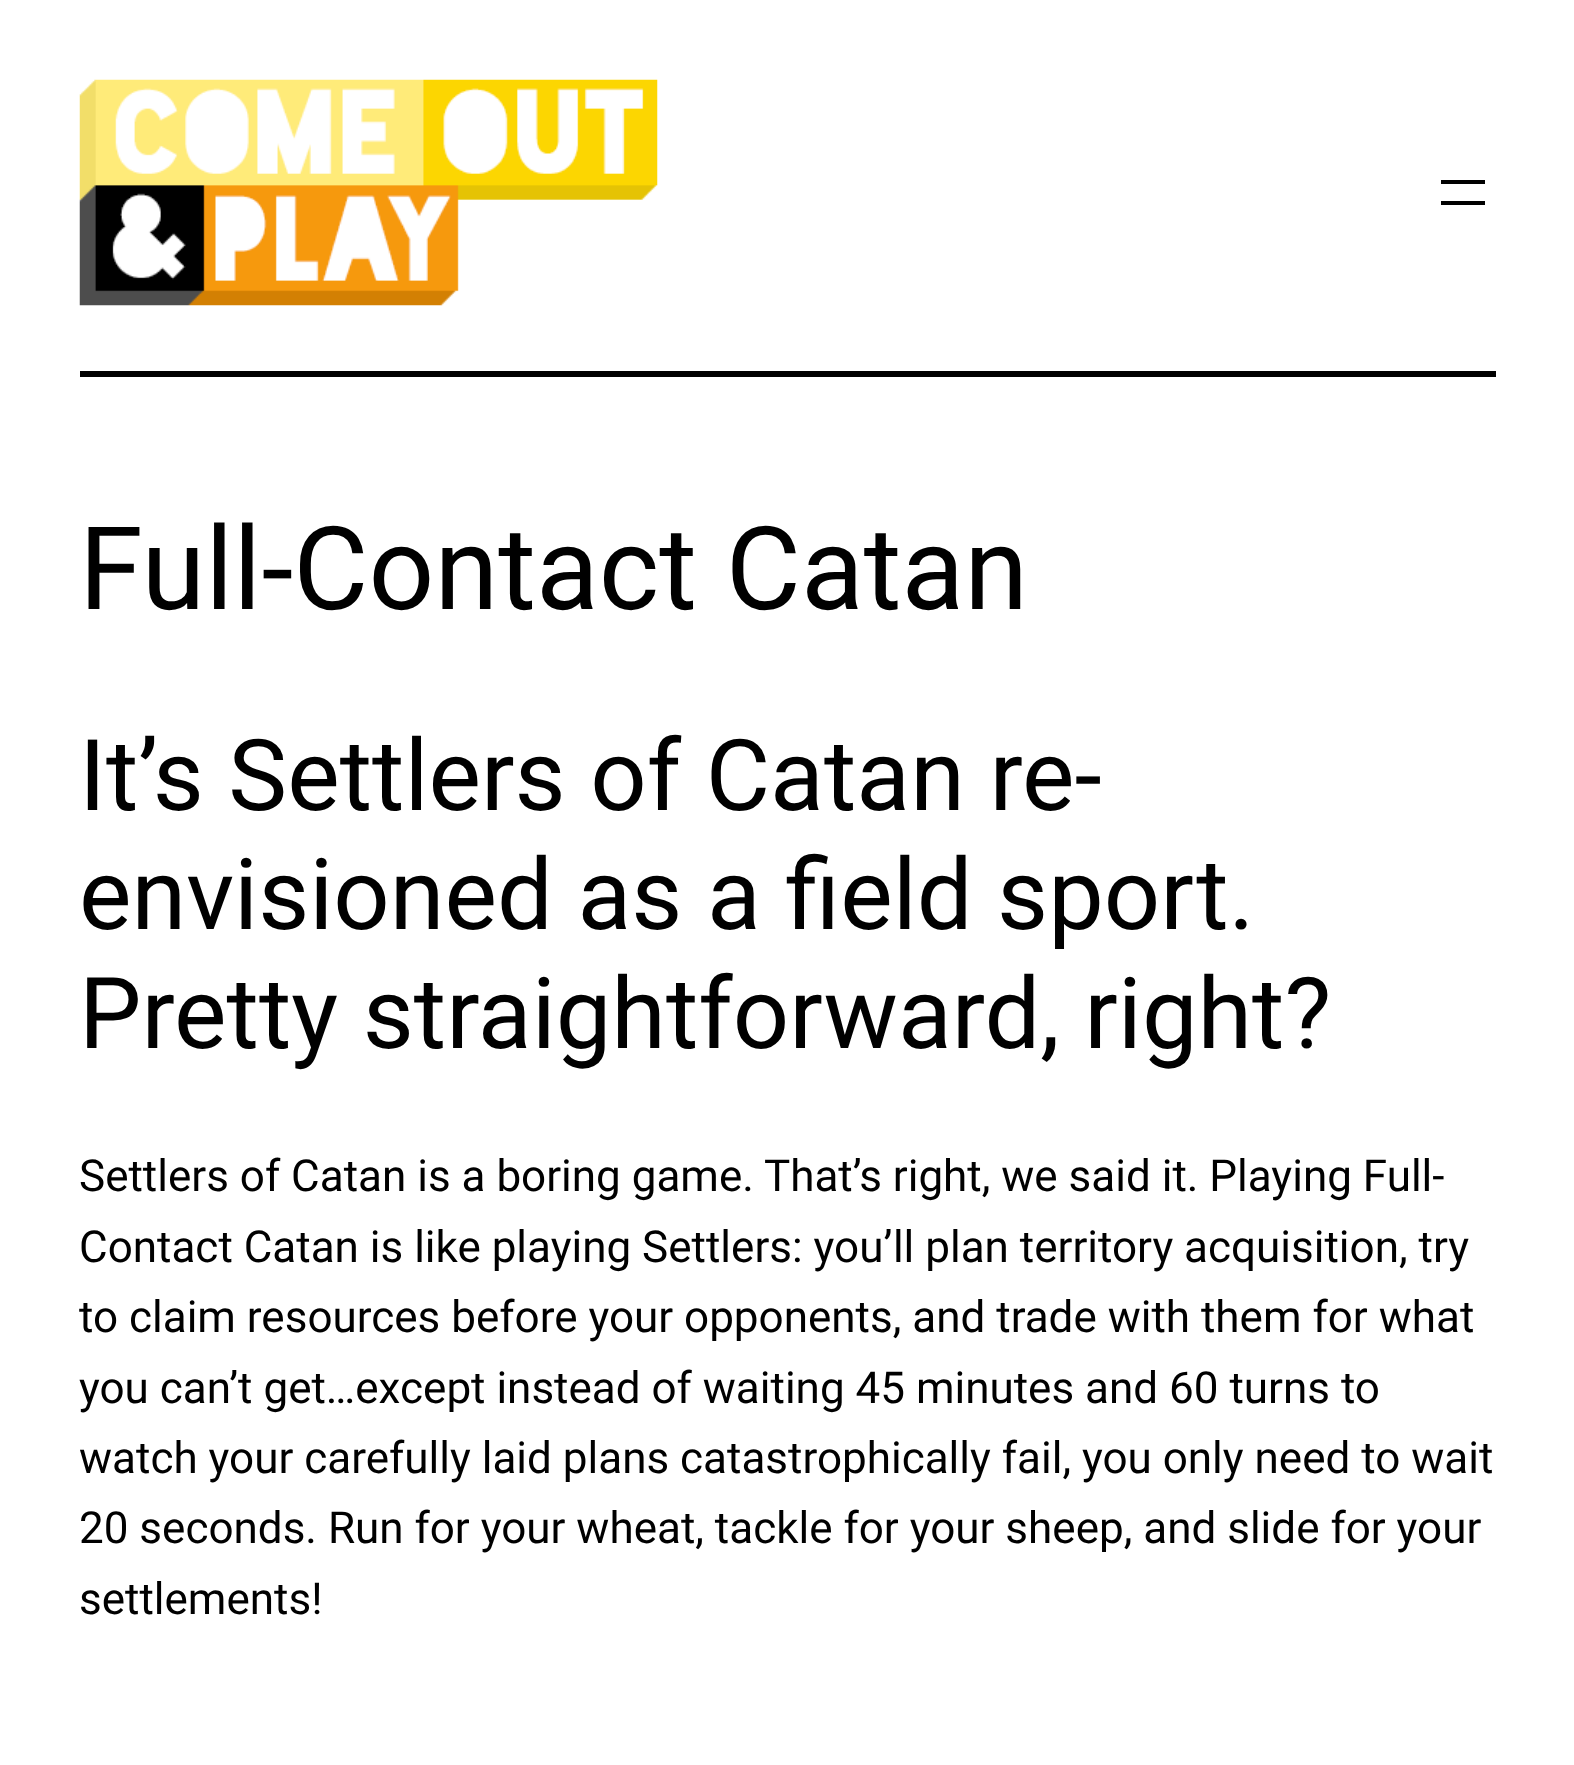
<svg xmlns="http://www.w3.org/2000/svg" xmlns:xlink="http://www.w3.org/1999/xlink" width="1574" height="1765" viewBox="0 0 1574 1765">
<style>
.cls-1{font:115.5px Roboto;fill:#000000}
.cls-2{font:99px Roboto;fill:#000000}
.cls-3{font:44px Roboto;fill:#000000}
</style>
<rect width="100%" height="100%" fill="#ffffff"/>
<image xlink:href="image0.png" x="79" y="79" width="579" height="227"/>
<rect fill="#000000" x="1441" y="180" width="44" height="4"/>
<rect fill="#000000" x="1441" y="201" width="44" height="4"/>
<rect fill="#000000" x="80" y="371" width="1416" height="6"/>
<text class="cls-1" x="79" y="609">Full-Contact Catan</text>
<text class="cls-2"><tspan x="79" y="810">It’s Settlers of Catan re-</tspan><tspan x="79" y="929">envisioned as a field sport.</tspan><tspan x="79" y="1048">Pretty straightforward, right?</tspan></text>
<text class="cls-3"><tspan x="79" y="1191">Settlers of Catan is a boring game. That’s right, we said it. Playing Full-</tspan><tspan x="79" y="1262">Contact Catan is like playing Settlers: you’ll plan territory acquisition, try</tspan><tspan x="79" y="1332">to claim resources before your opponents, and trade with them for what</tspan><tspan x="79" y="1403">you can’t get…except instead of waiting 45 minutes and 60 turns to</tspan><tspan x="79" y="1473">watch your carefully laid plans catastrophically fail, you only need to wait</tspan><tspan x="79" y="1543">20 seconds. Run for your wheat, tackle for your sheep, and slide for your</tspan><tspan x="79" y="1614">settlements!</tspan></text>
</svg>
